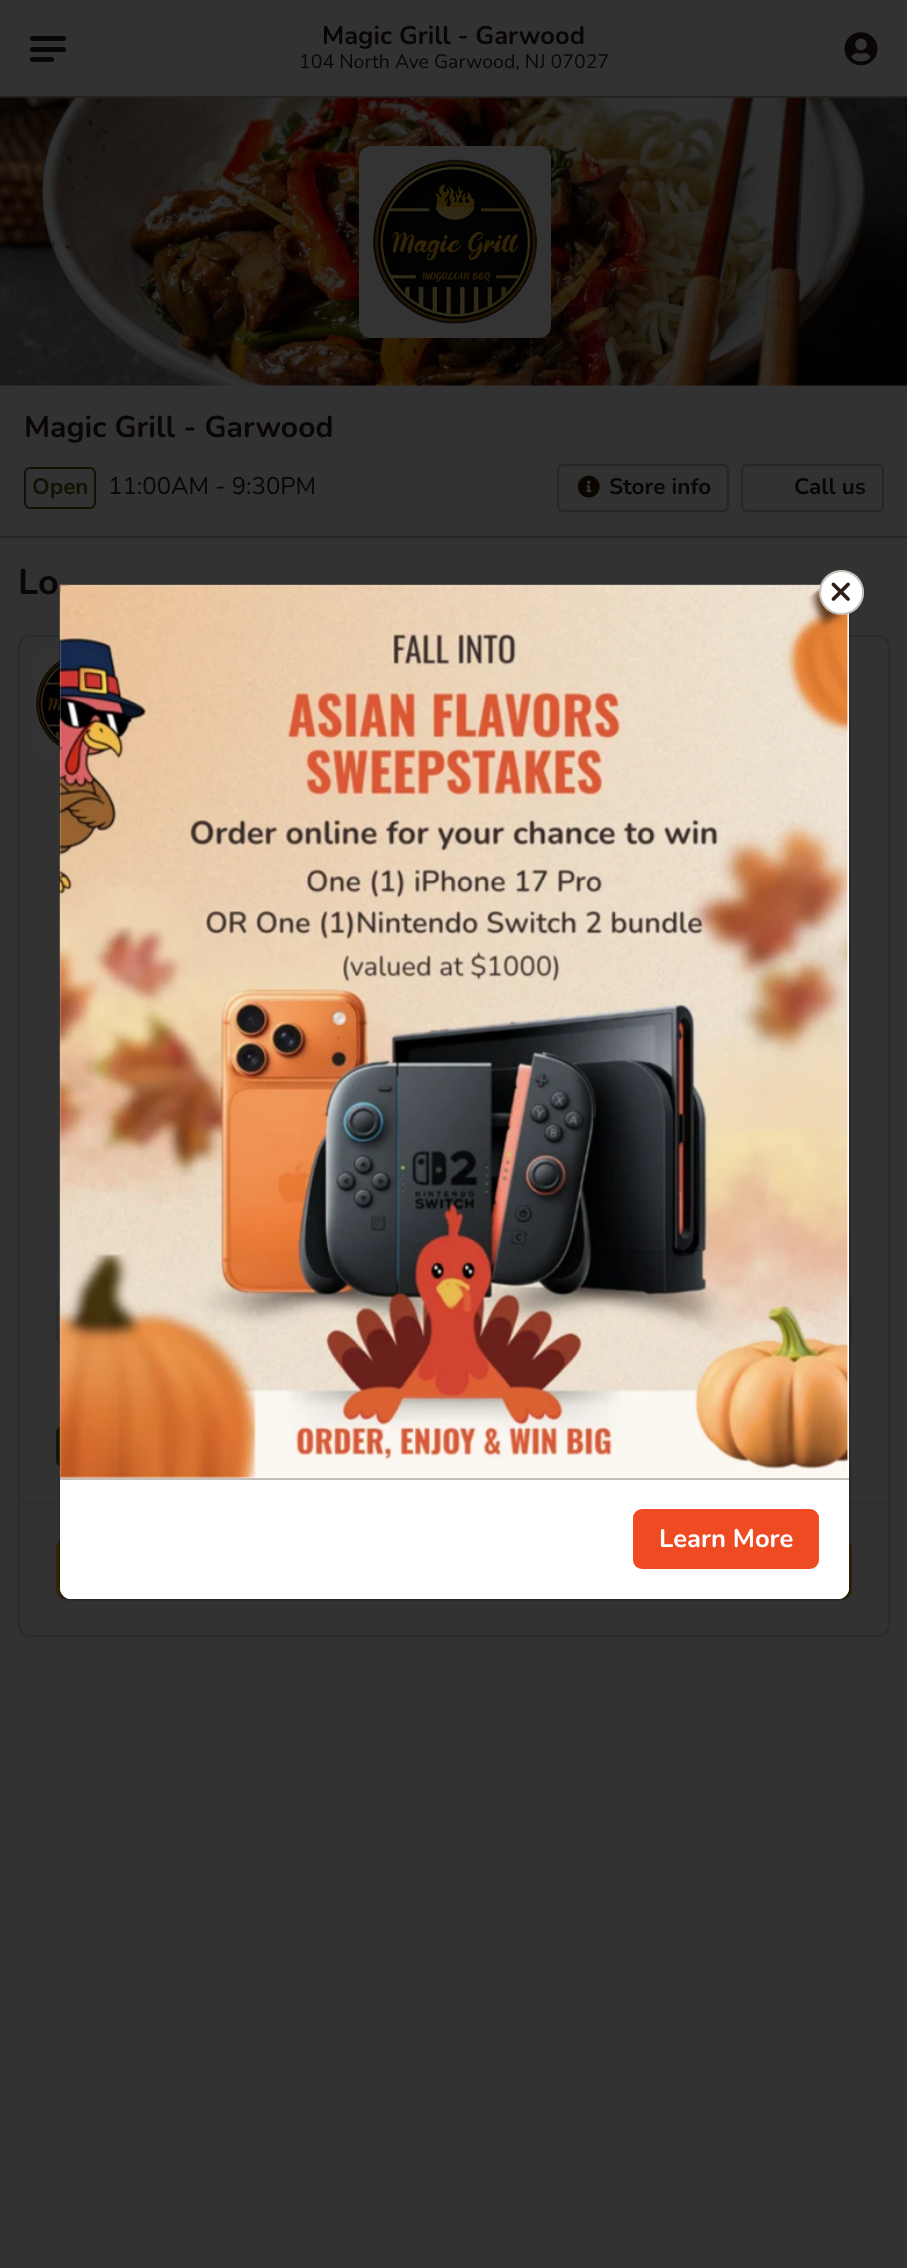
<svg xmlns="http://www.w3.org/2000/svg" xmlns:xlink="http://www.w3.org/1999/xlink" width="907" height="2268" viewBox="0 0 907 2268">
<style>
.cls-1{font:bold 25.5px Nunito;fill:#0a0605}
.cls-2{font:19.5px Nunito;fill:#0a0605}
.cls-3{font:bold 30px Nunito;fill:#0a0605}
.cls-4{font:bold 22.5px Nunito;fill:#0f1301}
.cls-5{font:24px Nunito;fill:#0a0605}
.cls-6{font:bold 22.5px Nunito;fill:#0a0605}
.cls-7{font:bold 36px Nunito;fill:#0a0605}
.cls-8{font:bold 25.5px Nunito;fill:#ffffff}
</style>
<rect width="100%" height="100%" fill="#323232"/>
<rect fill="#272624" x="0" y="537" width="907" height="1"/>
<rect fill="#272625" x="0" y="96" width="907" height="2"/>
<image xlink:href="image1.png" x="0" y="97" width="907" height="289"/>
<path fill="#1e1c19" fill-opacity="0.35" d="M0 96V98H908V2V96Z"/>
<rect fill="#070708" x="30" y="36" width="36" height="5" rx="2.5"/>
<rect fill="#070708" x="30" y="47" width="36" height="5" rx="2.5"/>
<rect fill="#070708" x="30" y="57" width="24" height="5" rx="2.5"/>
<image xlink:href="image0.png" x="844" y="32" width="34" height="34"/>
<rect fill="#272625" x="0" y="536" width="907" height="1"/>
<rect fill="#333333" x="359" y="146" width="192" height="192" rx="12"/>
<image xlink:href="image2.png" x="372" y="159" width="166" height="165"/>
<rect fill="none" stroke="#0f1301" stroke-width="2" x="25" y="468" width="70" height="40" rx="5"/>
<rect fill="none" stroke="#272625" stroke-width="2" x="558" y="465" width="170" height="46" rx="5"/>
<image xlink:href="image3.png" x="577" y="475" width="23" height="23"/>
<rect fill="none" stroke="#272625" stroke-width="2" x="742" y="465" width="141" height="46" rx="5"/>
<rect fill="none" stroke="#2b2b2b" stroke-width="2" x="19" y="636" width="870" height="1000" rx="11"/>
<image xlink:href="image4.png" x="35" y="652" width="25" height="104"/>
<rect fill="none" stroke="#2c2b2a" stroke-width="2" x="57" y="1297" width="794" height="46" rx="5"/>
<image xlink:href="image5.png" x="56" y="1427" width="4" height="39"/>
<rect fill="#2e2e2e" x="20" y="1502" width="868" height="2"/>
<rect fill="#312509" stroke="#312509" stroke-width="2" x="57" y="1540" width="794" height="58" rx="8"/>
<rect fill="#ffffff" x="60" y="585" width="789" height="1014" rx="11"/>
<rect fill="none" stroke="#000000" stroke-opacity="0.18" stroke-width="2" x="60" y="585" width="790" height="1015" rx="11"/>
<image xlink:href="image7.png" x="59" y="584" width="790" height="894"/>
<circle fill="#ffffff" cx="841.5" cy="592.5" r="22.5"/>
<image xlink:href="image6.png" x="831" y="582" width="19" height="19"/>
<circle fill="none" stroke="#948d7c" stroke-opacity="0.55" stroke-width="2" cx="841.5" cy="592.5" r="21.5"/>
<path fill="#ffffff" d="M60 1478H849V1588C849 1594 844 1599 838 1599H71C65 1599 60 1594 60 1588Z"/>
<rect fill="#c4c0b7" x="60" y="1478" width="789" height="2"/>
<rect fill="#ef4b23" x="633" y="1509" width="186" height="60" rx="9"/>
<text class="cls-1" x="322" y="44">Magic Grill - Garwood</text>
<text class="cls-2" x="299" y="68">104 North Ave Garwood, NJ 07027</text>
<text class="cls-3" x="24" y="437">Magic Grill - Garwood</text>
<text class="cls-4" x="32" y="494">Open</text>
<text class="cls-5" x="108" y="494">11:00AM - 9:30PM</text>
<text class="cls-6" x="609" y="494">Store info</text>
<text class="cls-6" x="794" y="494">Call us</text>
<text class="cls-7" x="18" y="594">Lo</text>
<text class="cls-8" x="659" y="1547">Learn More</text>
</svg>
